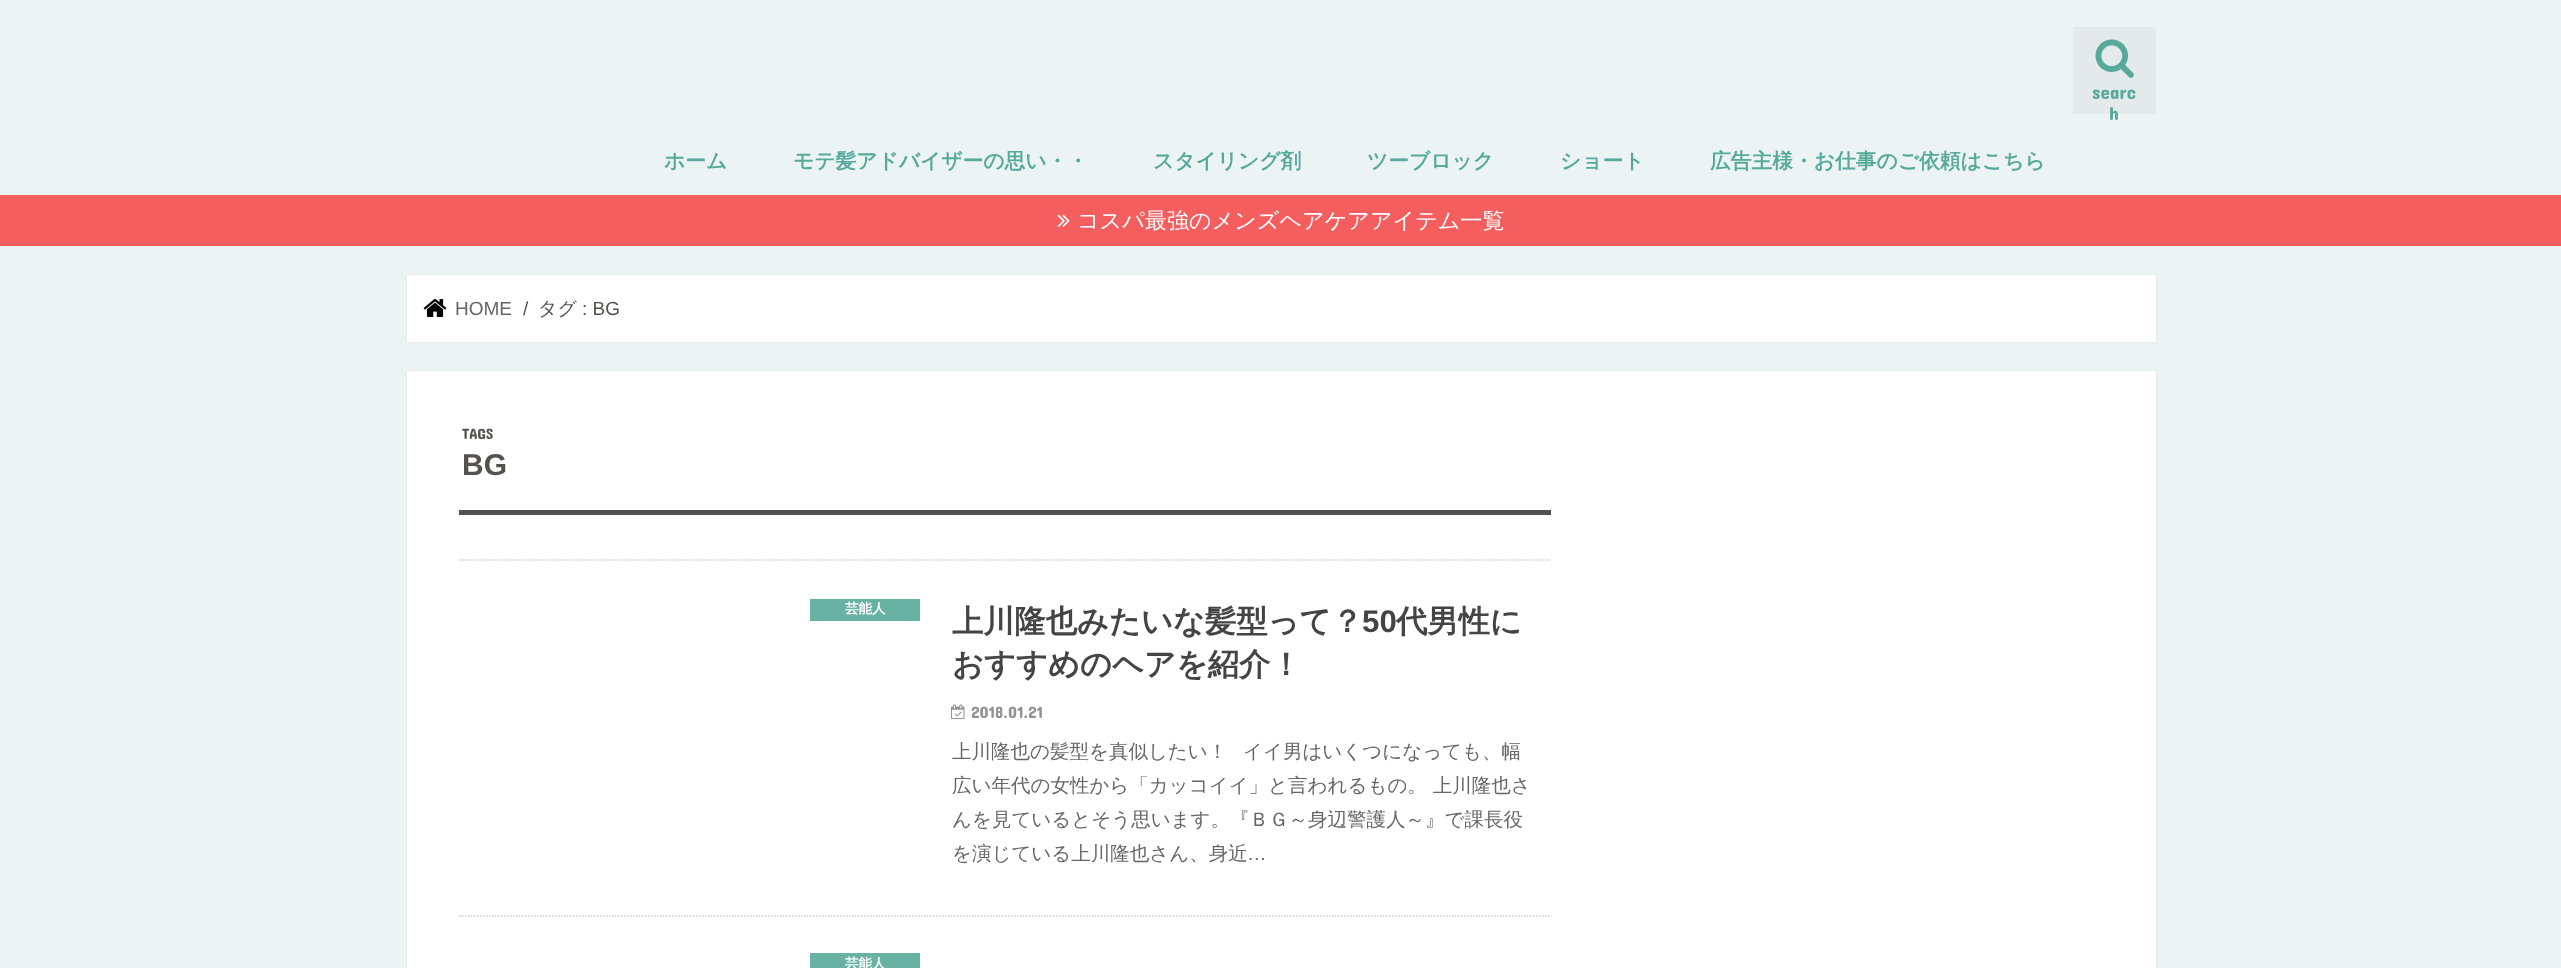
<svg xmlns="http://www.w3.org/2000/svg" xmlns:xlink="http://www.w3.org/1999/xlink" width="2561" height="968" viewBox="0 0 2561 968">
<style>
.cls-1{font:19px Concert One;fill:#57a99a}
.cls-2{font:bold 20.75px WenQuanYi Zen Hei;fill:#57a99a}
.cls-3{font:500 22.1px WenQuanYi Zen Hei;fill:#ffffff}
.cls-4{font:19px Liberation Sans;fill:#666666}
.cls-5{font:19px Liberation Sans;fill:#555151}
.cls-6{font:500 19px WenQuanYi Zen Hei;fill:#555151}
.cls-7{font:15px Concert One;fill:#555151}
.cls-8{font:bold 30px Liberation Sans;fill:#555151}
.cls-9{font:bold 13.5px WenQuanYi Zen Hei;fill:#ffffff}
.cls-10{font:bold 31.25px WenQuanYi Zen Hei;fill:#444444}
.cls-11{font:bold 31.25px Liberation Sans;fill:#444444}
.cls-12{font:16.5px Concert One;fill:#949494}
.cls-13{font:500 19.5px WenQuanYi Zen Hei;fill:#666666}
.cls-14{font:19.5px Liberation Sans;fill:#666666}
</style>
<rect width="100%" height="100%" fill="#ecf4f3"/>
<rect fill="#e3eae9" x="2073" y="27" width="83" height="87"/>
<image xlink:href="image0.png" x="2095" y="39" width="39" height="39"/>
<rect fill="#f55e5e" x="0" y="195" width="2561" height="51"/>
<image xlink:href="image1.png" x="1057" y="214" width="13" height="13"/>
<rect fill="#dddddd" filter="blur(1px)" x="407" y="275" width="1749" height="67"/>
<rect fill="#ffffff" x="407" y="275" width="1749" height="67"/>
<image xlink:href="image2.png" x="423" y="299" width="24" height="18"/>
<rect fill="#dddddd" filter="blur(1px)" x="407" y="371" width="1749" height="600"/>
<rect fill="#ffffff" x="407" y="371" width="1749" height="597"/>
<rect fill="#555151" x="459" y="510" width="1092" height="5"/>
<path fill="none" stroke="#cccccc" stroke-width="1.5" stroke-dasharray="1.5 1.5" d="M459 560H1551"/>
<path fill="none" stroke="#cccccc" stroke-width="1.5" stroke-dasharray="1.5 1.5" d="M459 916H1551"/>
<rect fill="#68b2a4" x="810" y="599" width="110" height="22"/>
<image xlink:href="image3.png" x="951" y="704" width="14" height="16"/>
<rect fill="#68b2a4" x="810" y="953" width="110" height="15"/>
<text class="cls-1" x="2092" y="99">searc</text>
<text class="cls-1" x="2109" y="120">h</text>
<text class="cls-2" x="664" y="168">ホーム</text>
<text class="cls-2" x="793" y="168">モテ髪アドバイザーの思い・・</text>
<text class="cls-2" x="1153" y="168">スタイリング剤</text>
<text class="cls-2" x="1367" y="168">ツーブロック</text>
<text class="cls-2" x="1560" y="168">ショート</text>
<text class="cls-2" x="1710" y="168">広告主様・お仕事のご依頼はこちら</text>
<text class="cls-3" x="1077" y="228">コスパ最強のメンズヘアケアアイテム一覧</text>
<text class="cls-4" x="455" y="315">HOME</text>
<text class="cls-5" x="523" y="315">/</text>
<text class="cls-6" x="538" y="315">タグ</text>
<text class="cls-5" x="582" y="315">: BG</text>
<text class="cls-7" x="462" y="439">TAGS</text>
<text class="cls-8" x="462" y="475">BG</text>
<text class="cls-9" x="845" y="613">芸能人</text>
<text class="cls-10" x="952" y="632">上川隆也みたいな髪型って？</text>
<text class="cls-11" x="1362" y="632">50</text>
<text class="cls-10" x="1396" y="632">代男性に</text>
<text class="cls-10" x="952" y="675">おすすめのヘアを紹介！</text>
<text class="cls-12" x="971" y="718">2018.01.21</text>
<text class="cls-13" x="952" y="758">上川隆也の髪型を真似したい！</text>
<text class="cls-13" x="1243" y="758">イイ男はいくつになっても、幅</text>
<text class="cls-13"><tspan x="952" y="792">広い年代の女性から「カッコイイ」と言われるもの。 上川隆也さ</tspan><tspan x="952" y="826">んを見ているとそう思います。『ＢＧ～身辺警護人～』で課長役</tspan><tspan x="952" y="860">を演じている上川隆也さん、身近</tspan></text>
<text class="cls-14" x="1247" y="860">…</text>
<text class="cls-9" x="845" y="968">芸能人</text>
</svg>
